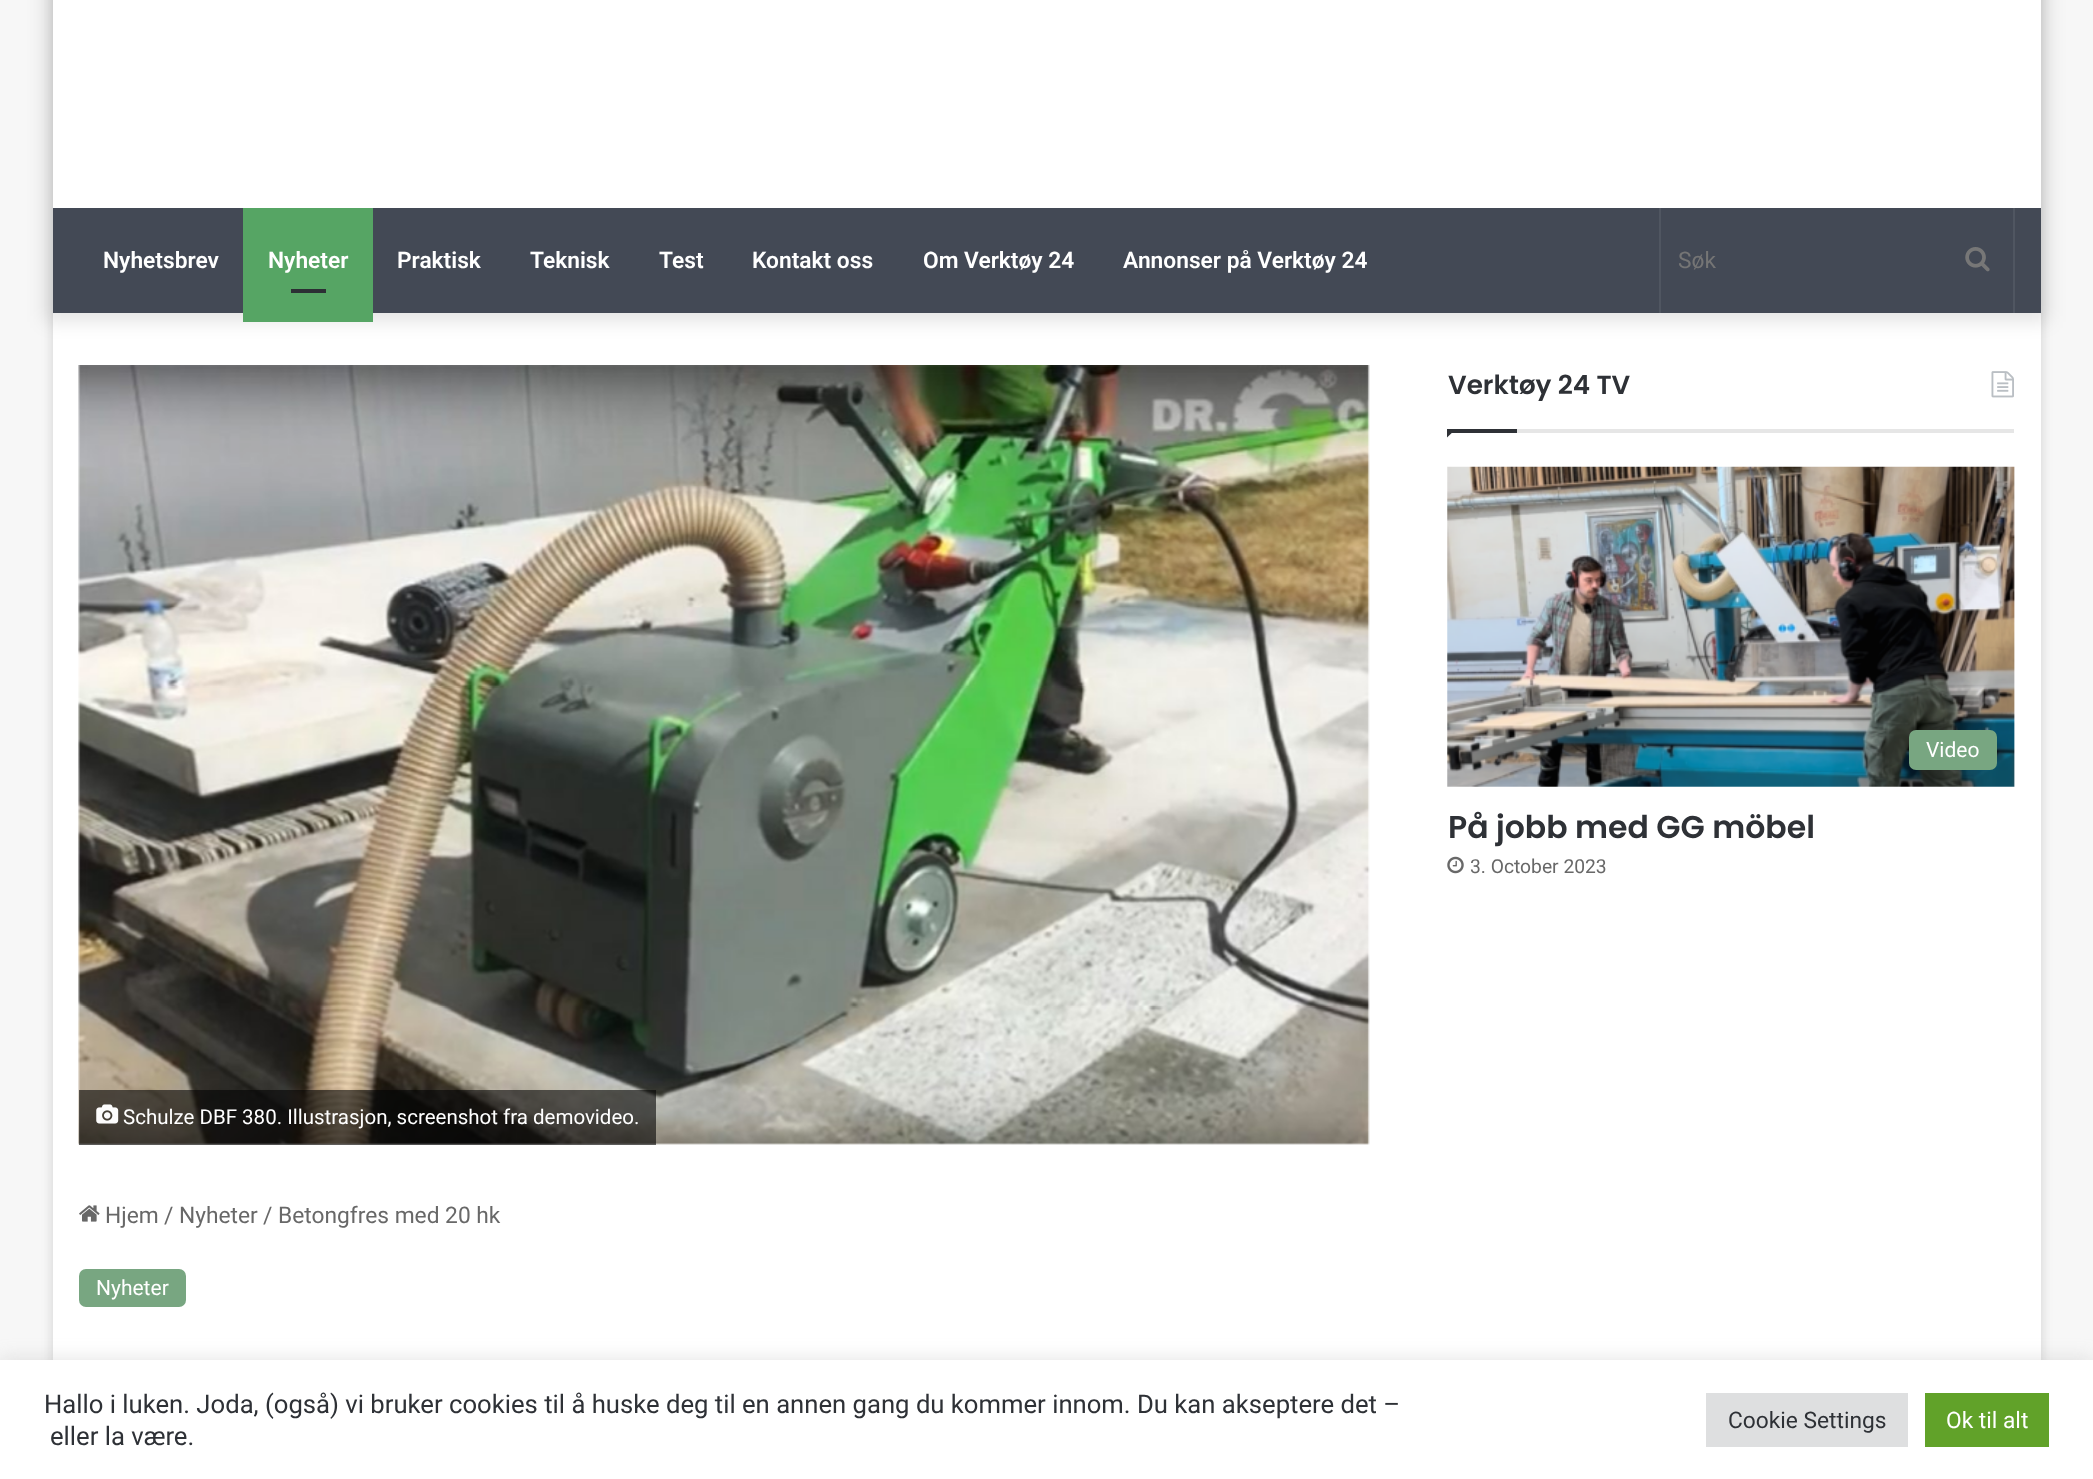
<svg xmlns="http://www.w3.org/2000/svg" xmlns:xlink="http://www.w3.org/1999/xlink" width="2093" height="1479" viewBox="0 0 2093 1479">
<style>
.cls-1{font:600 22.75px Roboto;fill:#ffffff}
.cls-2{font:22.75px Roboto;fill:#757575}
.cls-3{font:600 26.25px Poppins;fill:#2e3136}
.cls-4{font:21px Roboto;fill:#ffffff}
.cls-5{font:600 31.5px Poppins;fill:#2e3136}
.cls-6{font:19.25px Roboto;fill:#686868}
.cls-7{font:20.5px Roboto;fill:#ffffff}
.cls-8{font:22.75px Roboto;fill:#686868}
.cls-9{font:25.67px Roboto;fill:#2e3136}
.cls-10{font:22.75px Roboto;fill:#2e3136}
.cls-11{font:22.75px Roboto;fill:#ffffff}
</style>
<rect width="100%" height="100%" fill="#f7f7f7"/>
<rect fill="#ababab" fill-opacity="0.5" filter="blur(6px)" x="53" y="-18" width="1988" height="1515"/>
<rect fill="#ffffff" x="53" y="313" width="1988" height="1047"/>
<rect fill="#000000" fill-opacity="0.1" filter="blur(9px)" x="44" y="-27" width="2005" height="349"/>
<rect fill="#ffffff" x="53" y="0" width="1988" height="208"/>
<rect fill="#434955" x="53" y="208" width="1988" height="105"/>
<rect fill="#56a564" x="243" y="208" width="130" height="114"/>
<rect fill="#2c2f34" x="291" y="289" width="35" height="4"/>
<rect fill="#505661" x="2013" y="208" width="2" height="105"/>
<rect fill="#505661" x="1659" y="208" width="2" height="105"/>
<image xlink:href="image0.png" x="1965" y="247" width="25" height="25"/>
<rect fill="#e6e6e6" x="1517" y="429" width="497" height="4"/>
<image xlink:href="image1.png" x="1991" y="371" width="23" height="27"/>
<path fill="#2e3136" d="M1447 429H1456L1447 437.5Z"/>
<rect fill="#2e3136" x="1447" y="429" width="70" height="4"/>
<image xlink:href="image2.png" x="1447" y="466" width="568" height="321"/>
<rect fill="#78a681" x="1909" y="730" width="88" height="40" rx="7"/>
<image xlink:href="image3.png" x="1447" y="856" width="17" height="18"/>
<image xlink:href="image4.png" x="78" y="365" width="1292" height="780"/>
<rect fill="#030303" fill-opacity="0.6" x="79" y="1090" width="577" height="55"/>
<image xlink:href="image5.png" x="96" y="1104" width="23" height="20"/>
<image xlink:href="image6.png" x="79" y="1205" width="21" height="17"/>
<rect fill="#78a681" x="79" y="1269" width="107" height="38" rx="7"/>
<rect fill="#acabab" fill-opacity="0.3" filter="blur(9px)" x="0" y="1358" width="2093" height="121"/>
<rect fill="#ffffff" x="0" y="1360" width="2093" height="119"/>
<rect fill="#dedfe0" x="1706" y="1393" width="202" height="54"/>
<rect fill="#61a229" x="1925" y="1393" width="124" height="54"/>
<text class="cls-1" x="103" y="268">Nyhetsbrev</text>
<text class="cls-1" x="268" y="268">Nyheter</text>
<text class="cls-1" x="397" y="268">Praktisk</text>
<text class="cls-1" x="530" y="268">Teknisk</text>
<text class="cls-1" x="659" y="268">Test</text>
<text class="cls-1" x="752" y="268">Kontakt oss</text>
<text class="cls-1" x="923" y="268">Om Verktøy 24</text>
<text class="cls-1" x="1123" y="268">Annonser på Verktøy 24</text>
<text class="cls-2" x="1678" y="268">Søk</text>
<text class="cls-3" x="1448" y="394">Verktøy 24 TV</text>
<text class="cls-4" x="1926" y="757">Video</text>
<text class="cls-5" x="1448" y="838">På jobb med GG möbel</text>
<text class="cls-6" x="1470" y="873">3. October 2023</text>
<text class="cls-7" x="123" y="1124">Schulze DBF 380. Illustrasjon, screenshot fra demovideo.</text>
<text class="cls-8" x="105" y="1223">Hjem</text>
<text class="cls-8" x="164" y="1223">/</text>
<text class="cls-8" x="179" y="1223">Nyheter</text>
<text class="cls-8" x="263" y="1223">/</text>
<text class="cls-8" x="278" y="1223">Betongfres med 20 hk</text>
<text class="cls-4" x="96" y="1295">Nyheter</text>
<text class="cls-9" x="44" y="1413">Hallo i luken. Joda, (også) vi bruker cookies til å huske deg til en annen gang du kommer innom. Du kan akseptere det –</text>
<text class="cls-9" x="50" y="1445">eller la være.</text>
<text class="cls-10" x="1728" y="1428">Cookie Settings</text>
<text class="cls-11" x="1946" y="1428">Ok til alt</text>
</svg>
